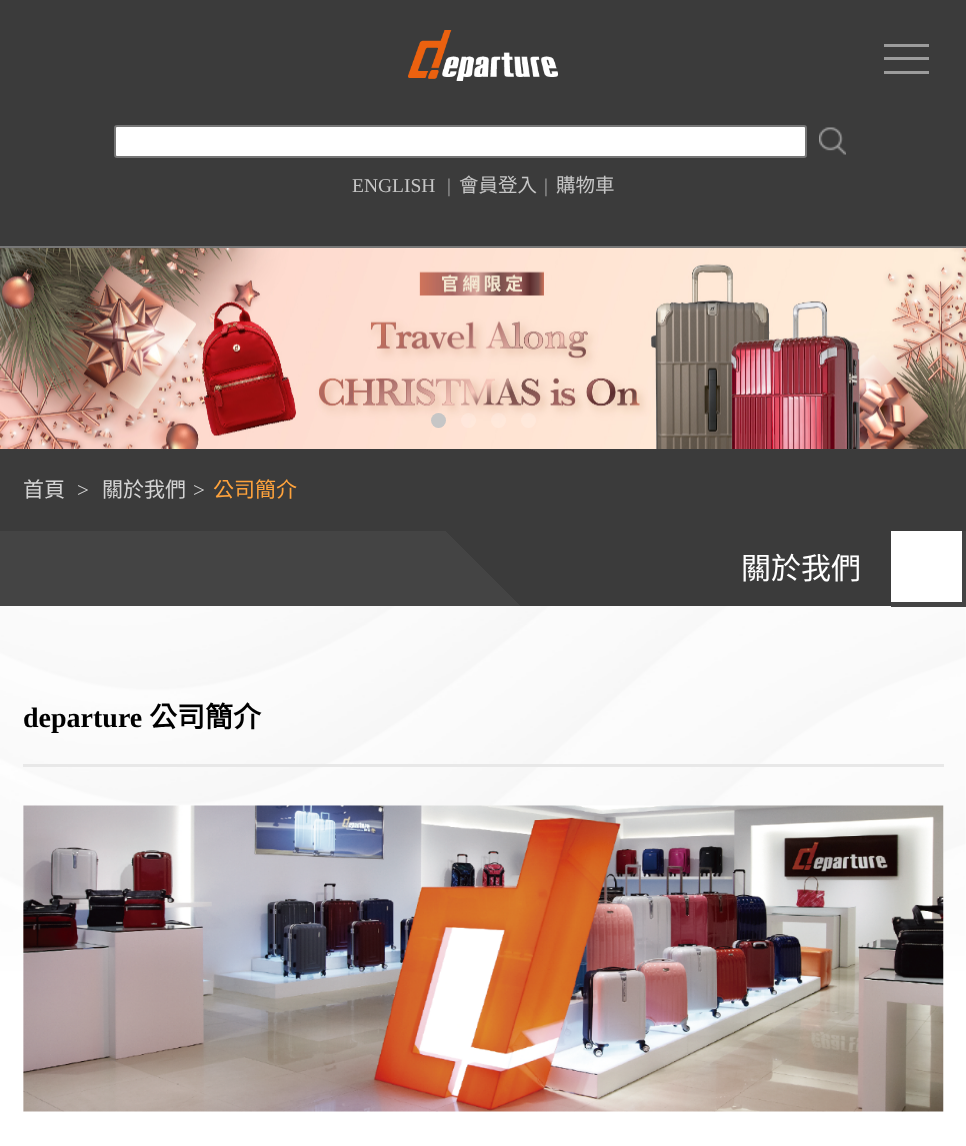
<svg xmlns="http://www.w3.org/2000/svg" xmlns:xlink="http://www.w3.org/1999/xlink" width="966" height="1146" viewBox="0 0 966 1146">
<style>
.cls-1{font:19.5px Liberation Serif;fill:#c6c6c6}
.cls-2{font:19.5px Liberation Serif;fill:#ababab}
.cls-3{font:19.5px Noto Sans CJK TC;fill:#c6c6c6}
.cls-4{font:21px Noto Sans CJK TC;fill:#d4d4d4}
.cls-5{font:21px Liberation Serif;fill:#d4d4d4}
.cls-6{font:21px Noto Sans CJK TC;fill:#ffa33c}
.cls-7{font:30px Noto Sans CJK TC;fill:#ffffff}
.cls-8{font:bold 28px Liberation Serif;fill:#000000}
.cls-9{font:bold 28px Noto Sans CJK TC;fill:#000000}
</style>
<defs>
<linearGradient id="g1" gradientUnits="userSpaceOnUse" x1="223" y1="829" x2="743" y2="308"><stop offset="0" stop-color="#444444"/><stop offset="0.5" stop-color="#444444"/><stop offset="0.5" stop-color="#3b3b3b"/><stop offset="1" stop-color="#3b3b3b"/></linearGradient>
</defs>
<rect width="100%" height="100%" fill="#ffffff"/>
<rect fill="#3b3b3b" x="0" y="0" width="966" height="246"/>
<rect fill="#9c9c9c" x="884" y="44" width="45" height="3"/>
<rect fill="#9c9c9c" x="884" y="57" width="45" height="3"/>
<rect fill="#9c9c9c" x="884" y="71" width="45" height="3"/>
<image xlink:href="image0.png" x="0" y="606" width="966" height="365"/>
<rect fill="#777777" x="0" y="246" width="966" height="2"/>
<image xlink:href="image1.png" x="408" y="30" width="150" height="51"/>
<rect fill="#ffffff" stroke="#767676" stroke-width="2" x="115" y="126" width="691" height="31" rx="2"/>
<image xlink:href="image2.png" x="819" y="127" width="27" height="28"/>
<image xlink:href="image3.png" x="0" y="248" width="966" height="201"/>
<circle fill="#c6c6c6" cx="438.5" cy="420.5" r="7.5"/>
<circle fill="#ffffff" fill-opacity="0.2" cx="468.5" cy="420.5" r="7.5"/>
<circle fill="#ffffff" fill-opacity="0.2" cx="498.5" cy="420.5" r="7.5"/>
<circle fill="#ffffff" fill-opacity="0.2" cx="528.5" cy="420.5" r="7.5"/>
<rect fill="#3b3b3b" x="0" y="449" width="966" height="82"/>
<rect fill="url(#g1)" x="0" y="531" width="891" height="75"/>
<rect fill="#444444" x="962" y="531" width="4" height="75"/>
<rect fill="#ffffff" fill-opacity="0.65" x="0" y="606" width="966" height="365"/>
<rect fill="#444444" x="891" y="602" width="75" height="5"/>
<rect fill="#e8e8e8" x="23" y="764" width="921" height="3"/>
<image xlink:href="image4.png" x="23" y="805" width="921" height="307"/>
<text class="cls-1" x="352" y="192">ENGLISH</text>
<text class="cls-2" x="447" y="192">|</text>
<text class="cls-3" x="459" y="192">會員登入</text>
<text class="cls-2" x="544" y="192">|</text>
<text class="cls-3" x="556" y="192">購物車</text>
<text class="cls-4" x="23" y="497">首頁</text>
<text class="cls-5" x="77" y="497">&gt;</text>
<text class="cls-4" x="102" y="497">關於我們</text>
<text class="cls-5" x="193" y="497">&gt;</text>
<text class="cls-6" x="213" y="497">公司簡介</text>
<text class="cls-7" x="741" y="579">關於我們</text>
<text class="cls-8" x="23" y="727">departure</text>
<text class="cls-9" x="149" y="727">公司簡介</text>
</svg>
